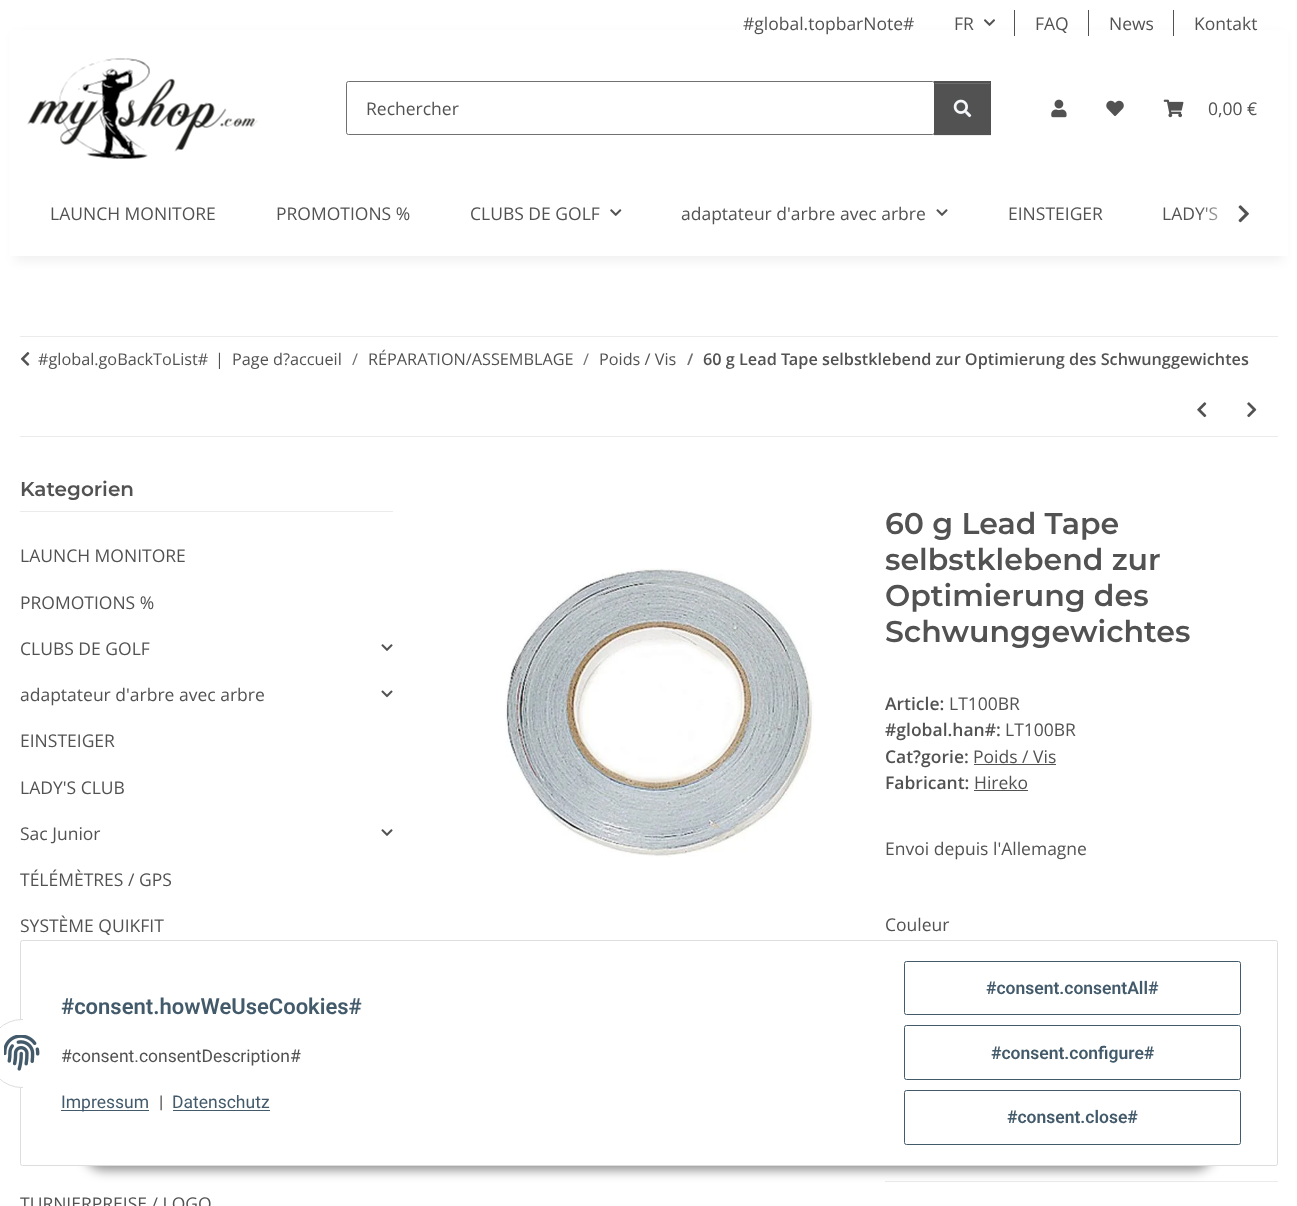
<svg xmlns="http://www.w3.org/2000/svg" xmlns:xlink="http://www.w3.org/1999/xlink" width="1297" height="1206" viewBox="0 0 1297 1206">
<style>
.cls-1{font:17.5px Open Sans;fill:#525252}
.cls-2{font:16.25px Open Sans;fill:#525252}
.cls-3{font:16.25px Open Sans;fill:#707070}
.cls-4{font:600 16.25px Open Sans;fill:#707070}
.cls-5{font:600 16.25px Open Sans;fill:#525252}
.cls-6{font:600 20px Montserrat;fill:#525252}
.cls-7{font:600 30px Montserrat;fill:#525252}
.cls-8{font:600 17.5px Open Sans;fill:#525252}
.cls-9{font:600 22px Roboto;fill:#435a6b}
.cls-10{font:17.5px Roboto;fill:#525252}
.cls-11{font:17.5px Roboto;fill:#435a6b}
.cls-12{font:600 17.5px Roboto;fill:#435a6b}
</style>
<defs>
<linearGradient id="g1" gradientUnits="userSpaceOnUse" x1="1198" y1="214" x2="1258" y2="214"><stop offset="0" stop-color="#ffffff" stop-opacity="0.01"/><stop offset="0.7" stop-color="#ffffff"/></linearGradient>
</defs>
<rect width="100%" height="100%" fill="#ffffff"/>
<rect fill="#000000" fill-opacity="0.06" filter="blur(5.5px)" x="15" y="35" width="1268" height="226"/>
<rect fill="#ffffff" x="10" y="30" width="1278" height="226"/>
<image xlink:href="image0.png" x="983" y="19" width="12" height="7"/>
<rect fill="#525252" x="1014" y="10" width="1" height="26"/>
<rect fill="#525252" x="1088" y="10" width="1" height="26"/>
<rect fill="#525252" x="1173" y="10" width="1" height="26"/>
<image xlink:href="image1.png" x="27" y="58" width="231" height="101"/>
<rect fill="none" stroke="#707070" x="346.5" y="81.5" width="588" height="53" rx="2"/>
<rect fill="#000000" fill-opacity="0.07" filter="blur(0.5px)" x="934" y="83" width="57" height="53"/>
<rect fill="#525252" x="934" y="81" width="57" height="54"/>
<rect fill="#6c6c6c" x="935" y="83" width="55" height="1"/>
<image xlink:href="image2.png" x="953" y="99" width="19" height="19"/>
<image xlink:href="image3.png" x="1051" y="99" width="16" height="19"/>
<image xlink:href="image4.png" x="1106" y="100" width="18" height="16"/>
<image xlink:href="image5.png" x="1163" y="99" width="21" height="19"/>
<image xlink:href="image6.png" x="610" y="209" width="12" height="7"/>
<image xlink:href="image7.png" x="936" y="209" width="12" height="7"/>
<image xlink:href="image8.png" x="1238" y="205" width="11" height="18"/>
<rect fill="#ebebeb" x="20" y="336" width="1258" height="1"/>
<rect fill="#ebebeb" x="20" y="436" width="1258" height="1"/>
<image xlink:href="image9.png" x="20" y="352" width="10" height="14"/>
<image xlink:href="image10.png" x="1197" y="402" width="10" height="16"/>
<image xlink:href="image11.png" x="1247" y="402" width="10" height="16"/>
<rect fill="#ebebeb" x="20" y="511" width="373" height="1"/>
<image xlink:href="image7.png" x="381" y="644" width="12" height="7"/>
<image xlink:href="image12.png" x="381" y="690" width="12" height="8"/>
<image xlink:href="image7.png" x="381" y="829" width="12" height="7"/>
<image xlink:href="image13.png" x="505" y="568" width="309" height="289"/>
<rect fill="#525252" x="974" y="764" width="82" height="1"/>
<rect fill="#525252" x="974" y="790" width="54" height="1"/>
<rect fill="#ebebeb" x="885" y="1181" width="393" height="1"/>
<rect fill="#000000" fill-opacity="0.45" filter="blur(6px)" x="84" y="1130" width="1130" height="40" rx="20"/>
<rect fill="#ffffff" stroke="#dddddd" x="20.5" y="940.5" width="1257" height="225" rx="2"/>
<rect fill="#ffffff" stroke="#dddddd" x="-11.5" y="1019.5" width="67" height="68" rx="33.5"/>
<rect fill="#ffffff" x="23" y="1019" width="33" height="69"/>
<image xlink:href="image14.png" x="4" y="1035" width="36" height="36"/>
<rect fill="#435a6b" x="61" y="1110" width="88" height="1"/>
<rect fill="#435a6b" x="173" y="1110" width="97" height="1"/>
<rect fill="none" stroke="#435a6b" x="904.5" y="961.5" width="336" height="53" rx="2"/>
<rect fill="none" stroke="#435a6b" x="904.5" y="1025.5" width="336" height="54" rx="2"/>
<rect fill="none" stroke="#435a6b" x="904.5" y="1090.5" width="336" height="54" rx="2"/>
<text class="cls-1" x="743" y="30">#global.topbarNote#</text>
<text class="cls-1" x="954" y="30">FR</text>
<text class="cls-1" x="1035" y="30">FAQ</text>
<text class="cls-1" x="1109" y="30">News</text>
<text class="cls-1" x="1194" y="30">Kontakt</text>
<text class="cls-1" x="366" y="115">Rechercher</text>
<text class="cls-1" x="1208" y="115">0,00 €</text>
<text class="cls-1" x="50" y="220">LAUNCH MONITORE</text>
<text class="cls-1" x="276" y="220">PROMOTIONS %</text>
<text class="cls-1" x="470" y="220">CLUBS DE GOLF</text>
<text class="cls-1" x="681" y="220">adaptateur d'arbre avec arbre</text>
<text class="cls-1" x="1008" y="220">EINSTEIGER</text>
<text class="cls-1" x="1162" y="220">LADY'S</text>
<rect fill="url(#g1)" x="1198" y="207" width="20" height="14"/>
<text class="cls-2" x="38" y="365">#global.goBackToList#</text>
<text class="cls-2" x="215" y="365">|</text>
<text class="cls-2" x="232" y="365">Page d?accueil</text>
<text class="cls-3" x="352" y="365">/</text>
<text class="cls-2" x="368" y="365">RÉPARATION/ASSEMBLAGE</text>
<text class="cls-3" x="583" y="365">/</text>
<text class="cls-2" x="599" y="365">Poids / Vis</text>
<text class="cls-4" x="687" y="365">/</text>
<text class="cls-5" x="703" y="365">60 g Lead Tape selbstklebend zur Optimierung des Schwunggewichtes</text>
<text class="cls-6" x="20" y="496">Kategorien</text>
<text class="cls-1" x="20" y="562">LAUNCH MONITORE</text>
<text class="cls-1" x="20" y="609">PROMOTIONS %</text>
<text class="cls-1" x="20" y="655">CLUBS DE GOLF</text>
<text class="cls-1" x="20" y="701">adaptateur d'arbre avec arbre</text>
<text class="cls-1" x="20" y="747">EINSTEIGER</text>
<text class="cls-1" x="20" y="794">LADY'S CLUB</text>
<text class="cls-1" x="20" y="840">Sac Junior</text>
<text class="cls-1" x="20" y="886">TÉLÉMÈTRES / GPS</text>
<text class="cls-1" x="20" y="932">SYSTÈME QUIKFIT</text>
<text class="cls-1" x="20" y="1210">TURNIERPREISE / LOGO</text>
<text class="cls-7"><tspan x="885" y="534">60 g Lead Tape</tspan><tspan x="885" y="570">selbstklebend zur</tspan><tspan x="885" y="606">Optimierung des</tspan><tspan x="885" y="642">Schwunggewichtes</tspan></text>
<text class="cls-8" x="885" y="710">Article:</text>
<text class="cls-1" x="949" y="710">LT100BR</text>
<text class="cls-8" x="885" y="736">#global.han#:</text>
<text class="cls-1" x="1005" y="736">LT100BR</text>
<text class="cls-8" x="885" y="763">Cat?gorie:</text>
<text class="cls-1" x="973" y="763">Poids / Vis</text>
<text class="cls-8" x="885" y="789">Fabricant:</text>
<text class="cls-1" x="974" y="789">Hireko</text>
<text class="cls-1" x="885" y="855">Envoi depuis l'Allemagne</text>
<text class="cls-1" x="885" y="931">Couleur</text>
<text class="cls-9" x="61" y="1014">#consent.howWeUseCookies#</text>
<text class="cls-10" x="61" y="1062">#consent.consentDescription#</text>
<text class="cls-11" x="61" y="1108">Impressum</text>
<text class="cls-10" x="159" y="1108">|</text>
<text class="cls-11" x="172" y="1108">Datenschutz</text>
<text class="cls-12" x="986" y="994">#consent.consentAll#</text>
<text class="cls-12" x="991" y="1059">#consent.configure#</text>
<text class="cls-12" x="1007" y="1123">#consent.close#</text>
</svg>
